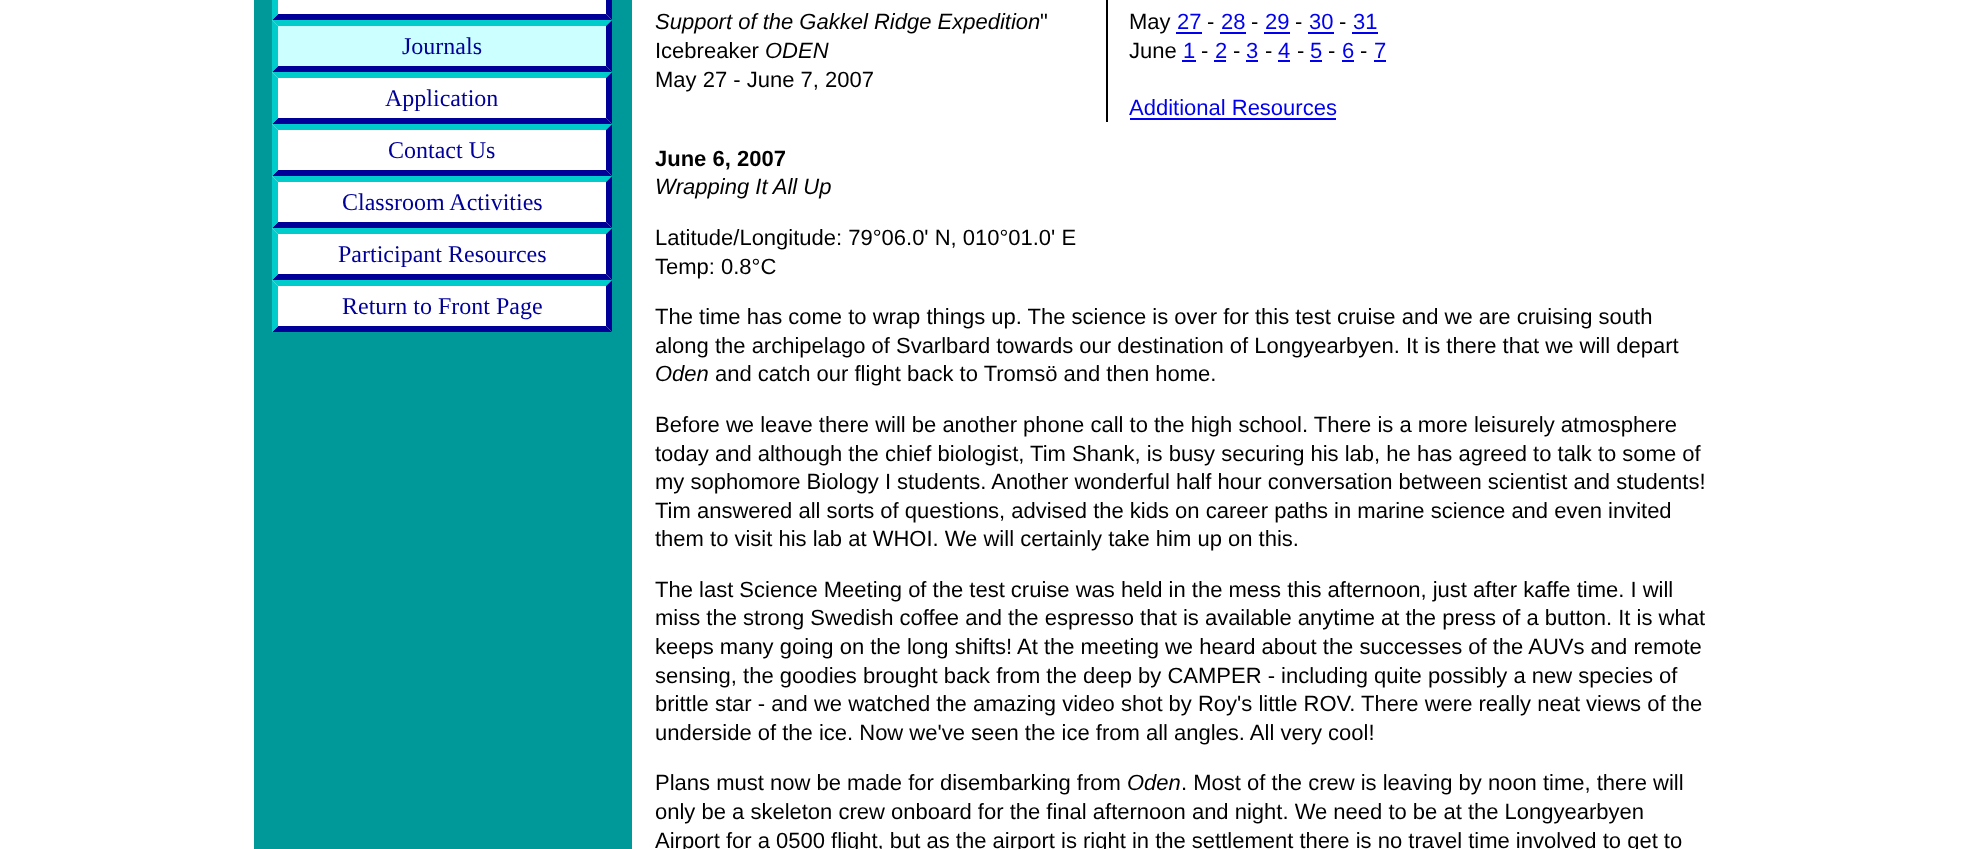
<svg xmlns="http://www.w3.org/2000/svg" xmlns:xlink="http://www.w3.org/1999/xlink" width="1985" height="849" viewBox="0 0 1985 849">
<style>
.cls-1{font:24px Liberation Serif;fill:#000099}
.cls-2{font:italic 22px Liberation Sans;fill:#000000}
.cls-3{font:22px Liberation Sans;fill:#000000}
.cls-4{font:22px Liberation Sans;fill:#0000ee}
.cls-5{font:bold 22px Liberation Sans;fill:#000000}
</style>
<rect width="100%" height="100%" fill="#ffffff"/>
<rect fill="#009999" x="254" y="0" width="378" height="849"/>
<rect fill="#ffffff" x="272" y="0" width="340" height="20"/>
<path fill="#000099" d="M612-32V20L606 14V-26Z"/>
<path fill="#000099" d="M612 20H272L278 14H606Z"/>
<path fill="#00cccc" d="M272 20V-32L278-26V14Z"/>
<rect fill="#ccffff" x="272" y="20" width="340" height="52"/>
<path fill="#00cccc" d="M272 20H612L606 26H278Z"/>
<path fill="#000099" d="M612 20V72L606 66V26Z"/>
<path fill="#000099" d="M612 72H272L278 66H606Z"/>
<path fill="#00cccc" d="M272 72V20L278 26V66Z"/>
<rect fill="#ffffff" x="272" y="72" width="340" height="260"/>
<path fill="#00cccc" d="M272 72H612L606 78H278Z"/>
<path fill="#000099" d="M612 72V124L606 118V78Z"/>
<path fill="#000099" d="M612 124H272L278 118H606Z"/>
<path fill="#00cccc" d="M272 124V72L278 78V118Z"/>
<path fill="#00cccc" d="M272 124H612L606 130H278Z"/>
<path fill="#000099" d="M612 124V176L606 170V130Z"/>
<path fill="#000099" d="M612 176H272L278 170H606Z"/>
<path fill="#00cccc" d="M272 176V124L278 130V170Z"/>
<path fill="#00cccc" d="M272 176H612L606 182H278Z"/>
<path fill="#000099" d="M612 176V228L606 222V182Z"/>
<path fill="#000099" d="M612 228H272L278 222H606Z"/>
<path fill="#00cccc" d="M272 228V176L278 182V222Z"/>
<path fill="#00cccc" d="M272 228H612L606 234H278Z"/>
<path fill="#000099" d="M612 228V280L606 274V234Z"/>
<path fill="#000099" d="M612 280H272L278 274H606Z"/>
<path fill="#00cccc" d="M272 280V228L278 234V274Z"/>
<path fill="#00cccc" d="M272 280H612L606 286H278Z"/>
<path fill="#000099" d="M612 280V332L606 326V286Z"/>
<path fill="#000099" d="M612 332H272L278 326H606Z"/>
<path fill="#00cccc" d="M272 332V280L278 286V326Z"/>
<rect fill="#000000" x="1106" y="0" width="2" height="122"/>
<rect fill="#0000ee" x="1176" y="32" width="26" height="2"/>
<rect fill="#0000ee" x="1220" y="32" width="26" height="2"/>
<rect fill="#0000ee" x="1264" y="32" width="26" height="2"/>
<rect fill="#0000ee" x="1308" y="32" width="26" height="2"/>
<rect fill="#0000ee" x="1352" y="32" width="26" height="2"/>
<rect fill="#0000ee" x="1182" y="60" width="14" height="2"/>
<rect fill="#0000ee" x="1214" y="60" width="12" height="2"/>
<rect fill="#0000ee" x="1246" y="60" width="12" height="2"/>
<rect fill="#0000ee" x="1278" y="60" width="12" height="2"/>
<rect fill="#0000ee" x="1310" y="60" width="12" height="2"/>
<rect fill="#0000ee" x="1342" y="60" width="12" height="2"/>
<rect fill="#0000ee" x="1374" y="60" width="12" height="2"/>
<rect fill="#0000ee" x="1130" y="118" width="206" height="2"/>
<text class="cls-1" x="402" y="54">Journals</text>
<text class="cls-1" x="385" y="106">Application</text>
<text class="cls-1" x="388" y="158">Contact Us</text>
<text class="cls-1" x="342" y="210">Classroom Activities</text>
<text class="cls-1" x="338" y="262">Participant Resources</text>
<text class="cls-1" x="342" y="314">Return to Front Page</text>
<text class="cls-2" x="655" y="29">Support of the Gakkel Ridge Expedition</text>
<text class="cls-3" x="1040" y="29">"</text>
<text class="cls-3" x="655" y="58">Icebreaker</text>
<text class="cls-2" x="765" y="58">ODEN</text>
<text class="cls-3" x="655" y="87">May 27 - June 7, 2007</text>
<text class="cls-3" x="1129" y="29">May</text>
<text class="cls-4" x="1177" y="29">27</text>
<text class="cls-3" x="1207" y="29">-</text>
<text class="cls-4" x="1221" y="29">28</text>
<text class="cls-3" x="1251" y="29">-</text>
<text class="cls-4" x="1265" y="29">29</text>
<text class="cls-3" x="1295" y="29">-</text>
<text class="cls-4" x="1309" y="29">30</text>
<text class="cls-3" x="1339" y="29">-</text>
<text class="cls-4" x="1353" y="29">31</text>
<text class="cls-3" x="1129" y="58">June</text>
<text class="cls-4" x="1183" y="58">1</text>
<text class="cls-3" x="1201" y="58">-</text>
<text class="cls-4" x="1215" y="58">2</text>
<text class="cls-3" x="1233" y="58">-</text>
<text class="cls-4" x="1246" y="58">3</text>
<text class="cls-3" x="1265" y="58">-</text>
<text class="cls-4" x="1278" y="58">4</text>
<text class="cls-3" x="1297" y="58">-</text>
<text class="cls-4" x="1310" y="58">5</text>
<text class="cls-3" x="1328" y="58">-</text>
<text class="cls-4" x="1342" y="58">6</text>
<text class="cls-3" x="1360" y="58">-</text>
<text class="cls-4" x="1374" y="58">7</text>
<text class="cls-4" x="1129" y="115">Additional Resources</text>
<text class="cls-5" x="655" y="166">June 6, 2007</text>
<text class="cls-2" x="655" y="194">Wrapping It All Up</text>
<text class="cls-3"><tspan x="655" y="245">Latitude/Longitude: 79°06.0' N, 010°01.0' E</tspan><tspan x="655" y="274">Temp: 0.8°C</tspan></text>
<text class="cls-3"><tspan x="655" y="324">The time has come to wrap things up. The science is over for this test cruise and we are cruising south</tspan><tspan x="655" y="353">along the archipelago of Svarlbard towards our destination of Longyearbyen. It is there that we will depart</tspan></text>
<text class="cls-2" x="655" y="381">Oden</text>
<text class="cls-3" x="715" y="381">and catch our flight back to Tromsö and then home.</text>
<text class="cls-3"><tspan x="655" y="432">Before we leave there will be another phone call to the high school. There is a more leisurely atmosphere</tspan><tspan x="655" y="461">today and although the chief biologist, Tim Shank, is busy securing his lab, he has agreed to talk to some of</tspan><tspan x="655" y="489">my sophomore Biology I students. Another wonderful half hour conversation between scientist and students!</tspan><tspan x="655" y="518">Tim answered all sorts of questions, advised the kids on career paths in marine science and even invited</tspan><tspan x="655" y="546">them to visit his lab at WHOI. We will certainly take him up on this.</tspan></text>
<text class="cls-3"><tspan x="655" y="597">The last Science Meeting of the test cruise was held in the mess this afternoon, just after kaffe time. I will</tspan><tspan x="655" y="625">miss the strong Swedish coffee and the espresso that is available anytime at the press of a button. It is what</tspan><tspan x="655" y="654">keeps many going on the long shifts! At the meeting we heard about the successes of the AUVs and remote</tspan><tspan x="655" y="683">sensing, the goodies brought back from the deep by CAMPER - including quite possibly a new species of</tspan><tspan x="655" y="711">brittle star - and we watched the amazing video shot by Roy's little ROV. There were really neat views of the</tspan><tspan x="655" y="740">underside of the ice. Now we've seen the ice from all angles. All very cool!</tspan></text>
<text class="cls-3" x="655" y="790">Plans must now be made for disembarking from</text>
<text class="cls-2" x="1127" y="790">Oden</text>
<text class="cls-3" x="1181" y="790">. Most of the crew is leaving by noon time, there will</text>
<text class="cls-3"><tspan x="655" y="819">only be a skeleton crew onboard for the final afternoon and night. We need to be at the Longyearbyen</tspan><tspan x="655" y="848">Airport for a 0500 flight, but as the airport is right in the settlement there is no travel time involved to get to</tspan></text>
</svg>
